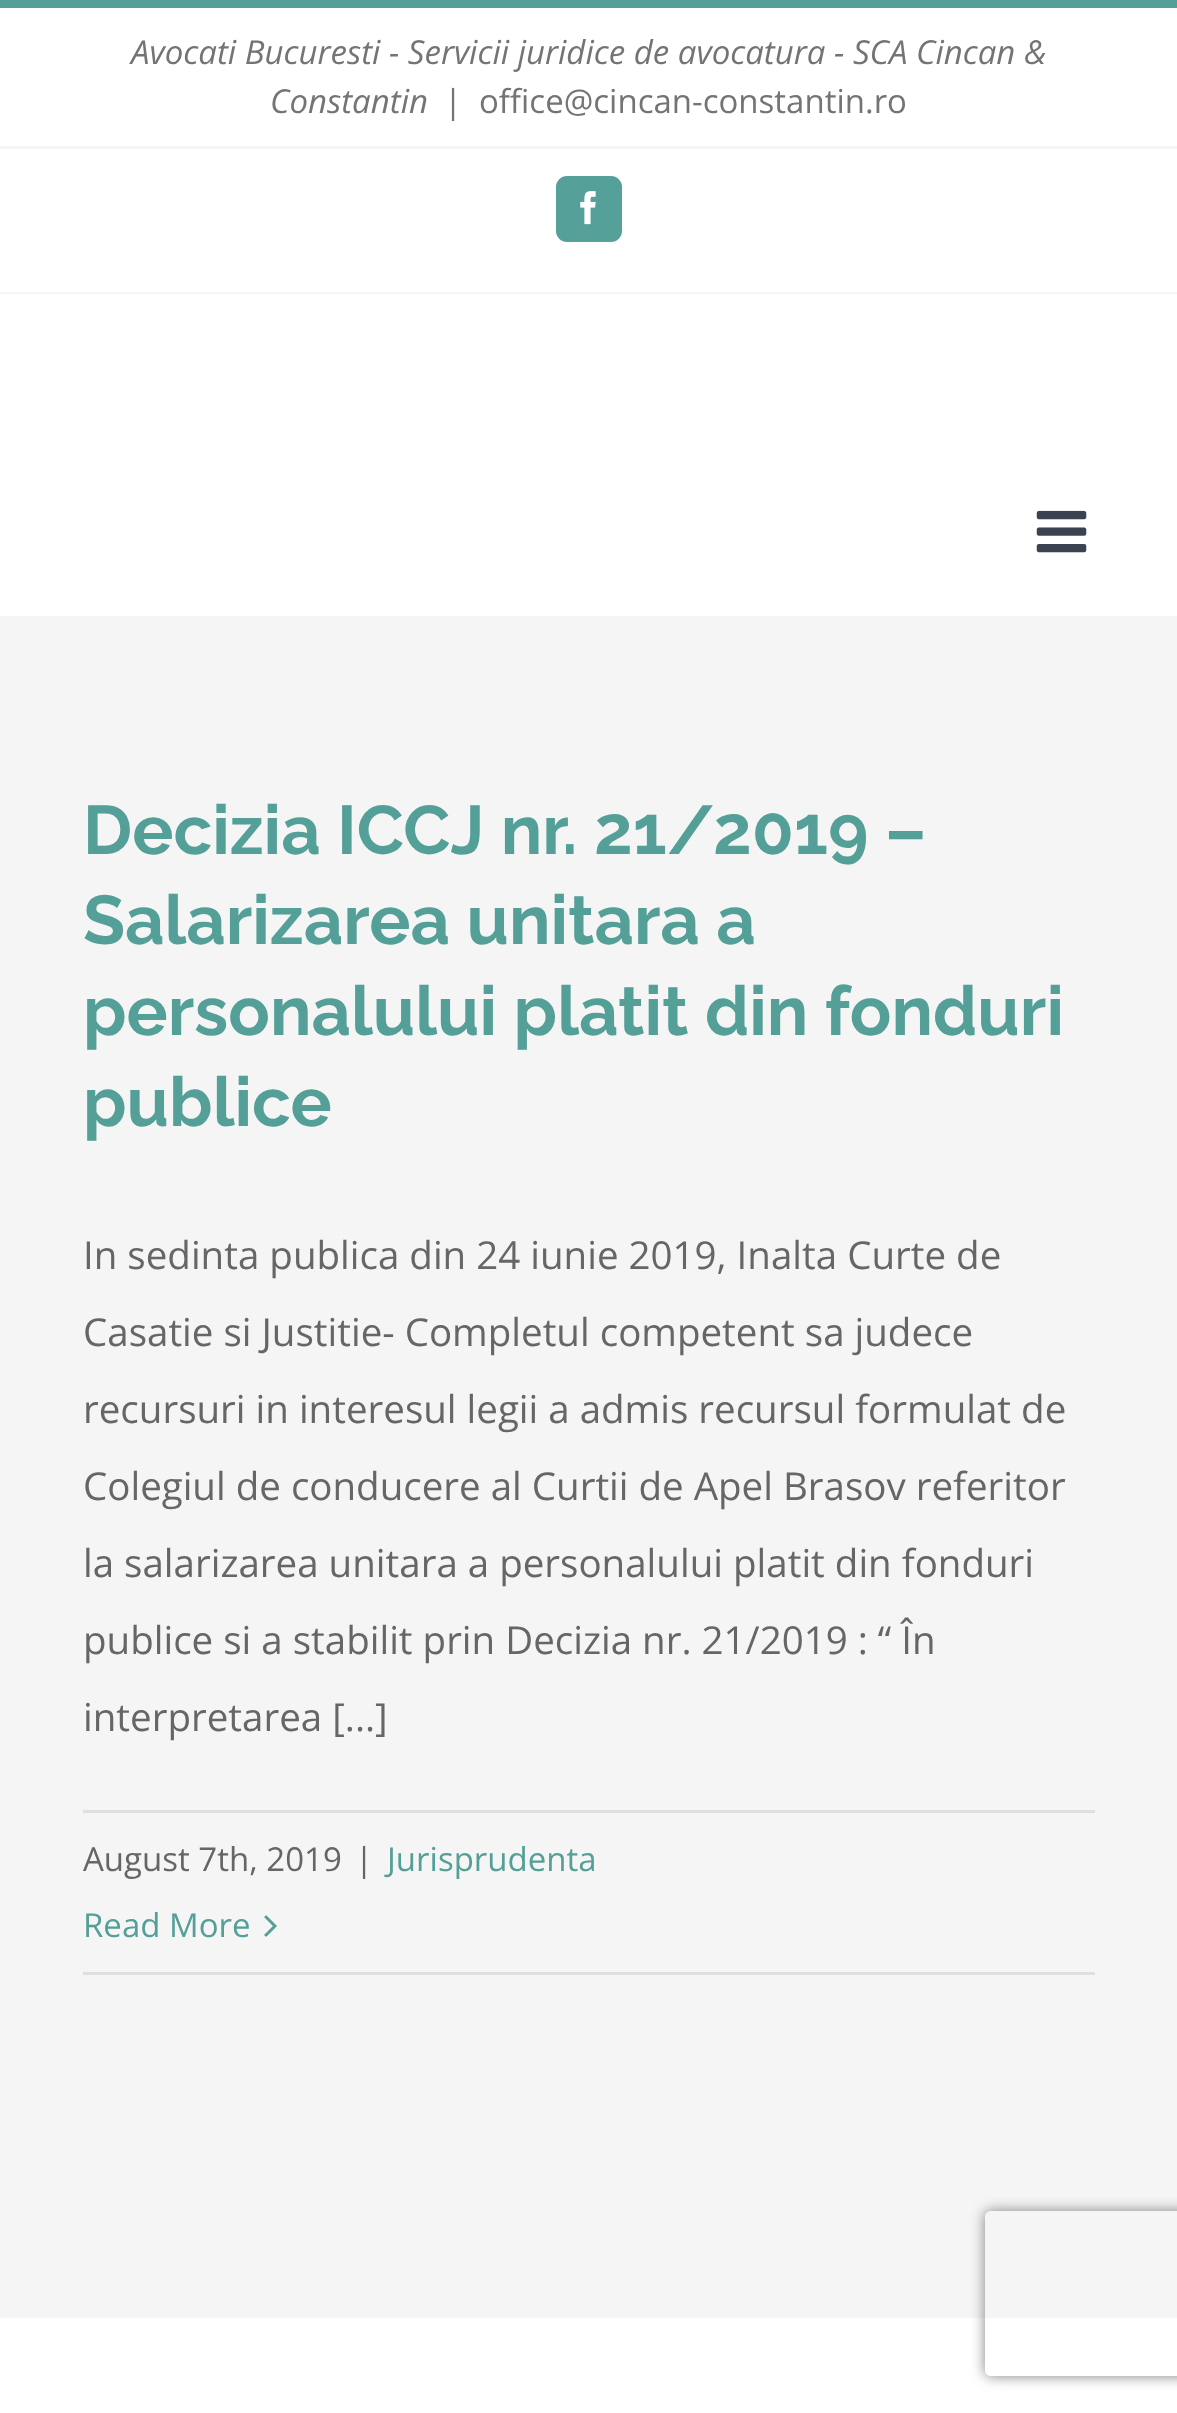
<svg xmlns="http://www.w3.org/2000/svg" xmlns:xlink="http://www.w3.org/1999/xlink" width="1177" height="2413" viewBox="0 0 1177 2413">
<style>
.cls-1{font:italic 33px Open Sans;fill:#747474}
.cls-2{font:33px Open Sans;fill:#747474}
.cls-3{font:100 68.75px Raleway;fill:#549f97}
.cls-4{font:38.5px Open Sans;fill:#666666}
.cls-5{font:33px Open Sans;fill:#666666}
.cls-6{font:33px Open Sans;fill:#549f97}
</style>
<defs>
<clipPath id="clip1"><path d="M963 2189H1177V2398H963ZM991 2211H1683C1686.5 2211 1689 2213.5 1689 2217V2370C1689 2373.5 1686.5 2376 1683 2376H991C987.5 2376 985 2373.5 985 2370V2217C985 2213.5 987.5 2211 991 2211Z" clip-rule="evenodd"/></clipPath>
</defs>
<rect width="100%" height="100%" fill="#f5f5f5"/>
<rect fill="#ffffff" x="0" y="8" width="1177" height="284"/>
<rect fill="#549f97" x="0" y="0" width="1177" height="8"/>
<rect fill="#f5f5f5" x="0" y="146" width="1177" height="3"/>
<rect fill="#55a098" stroke="#55a098" stroke-width="3" x="557.5" y="177.5" width="63" height="63" rx="9.5"/>
<image xlink:href="image0.png" x="580" y="191" width="16" height="34"/>
<rect fill="#ffffff" x="0" y="294" width="1177" height="322"/>
<image xlink:href="image1.png" x="1036" y="510" width="51" height="43"/>
<rect fill="#e0dede" x="83" y="1810" width="1012" height="3"/>
<rect fill="#e0dede" x="83" y="1972" width="1012" height="3"/>
<image xlink:href="image2.png" x="264" y="1915" width="13" height="22"/>
<rect fill="#ffffff" x="0" y="2318" width="1177" height="95"/>
<g clip-path="url(#clip1)">
<rect fill="#808080" filter="blur(7px)" x="985" y="2211" width="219" height="165" rx="6"/>
</g>
<text class="cls-1" x="131" y="64">Avocati Bucuresti - Servicii juridice de avocatura - SCA Cincan &amp;</text>
<text class="cls-1" x="270" y="113">Constantin</text>
<text class="cls-2" x="444" y="113">|</text>
<text class="cls-2" x="479" y="113">office@cincan-constantin.ro</text>
<text class="cls-3"><tspan x="83" y="854">Decizia ICCJ nr. 21/2019 –</tspan><tspan x="83" y="944">Salarizarea unitara a</tspan><tspan x="83" y="1035">personalului platit din fonduri</tspan><tspan x="83" y="1126">publice</tspan></text>
<text class="cls-4" x="83" y="1269">In sedinta publica din 24 iunie 2019, Inalta Curte de</text>
<text class="cls-4" x="83" y="1346">Casatie si Justitie- Completul competent sa judece</text>
<text class="cls-4" x="83" y="1423">recursuri in interesul legii a admis recursul formulat de</text>
<text class="cls-4" x="83" y="1500">Colegiul de conducere al Curtii de Apel Brasov referitor</text>
<text class="cls-4" x="83" y="1577">la salarizarea unitara a personalului platit din fonduri</text>
<text class="cls-4" x="83" y="1654">publice si a stabilit prin Decizia nr. 21/2019 : “ În</text>
<text class="cls-4" x="83" y="1731">interpretarea [...]</text>
<text class="cls-5" x="83" y="1871">August 7th, 2019</text>
<text class="cls-5" x="355" y="1871">|</text>
<text class="cls-6" x="387" y="1871">Jurisprudenta</text>
<text class="cls-6" x="83" y="1937">Read More</text>
</svg>
